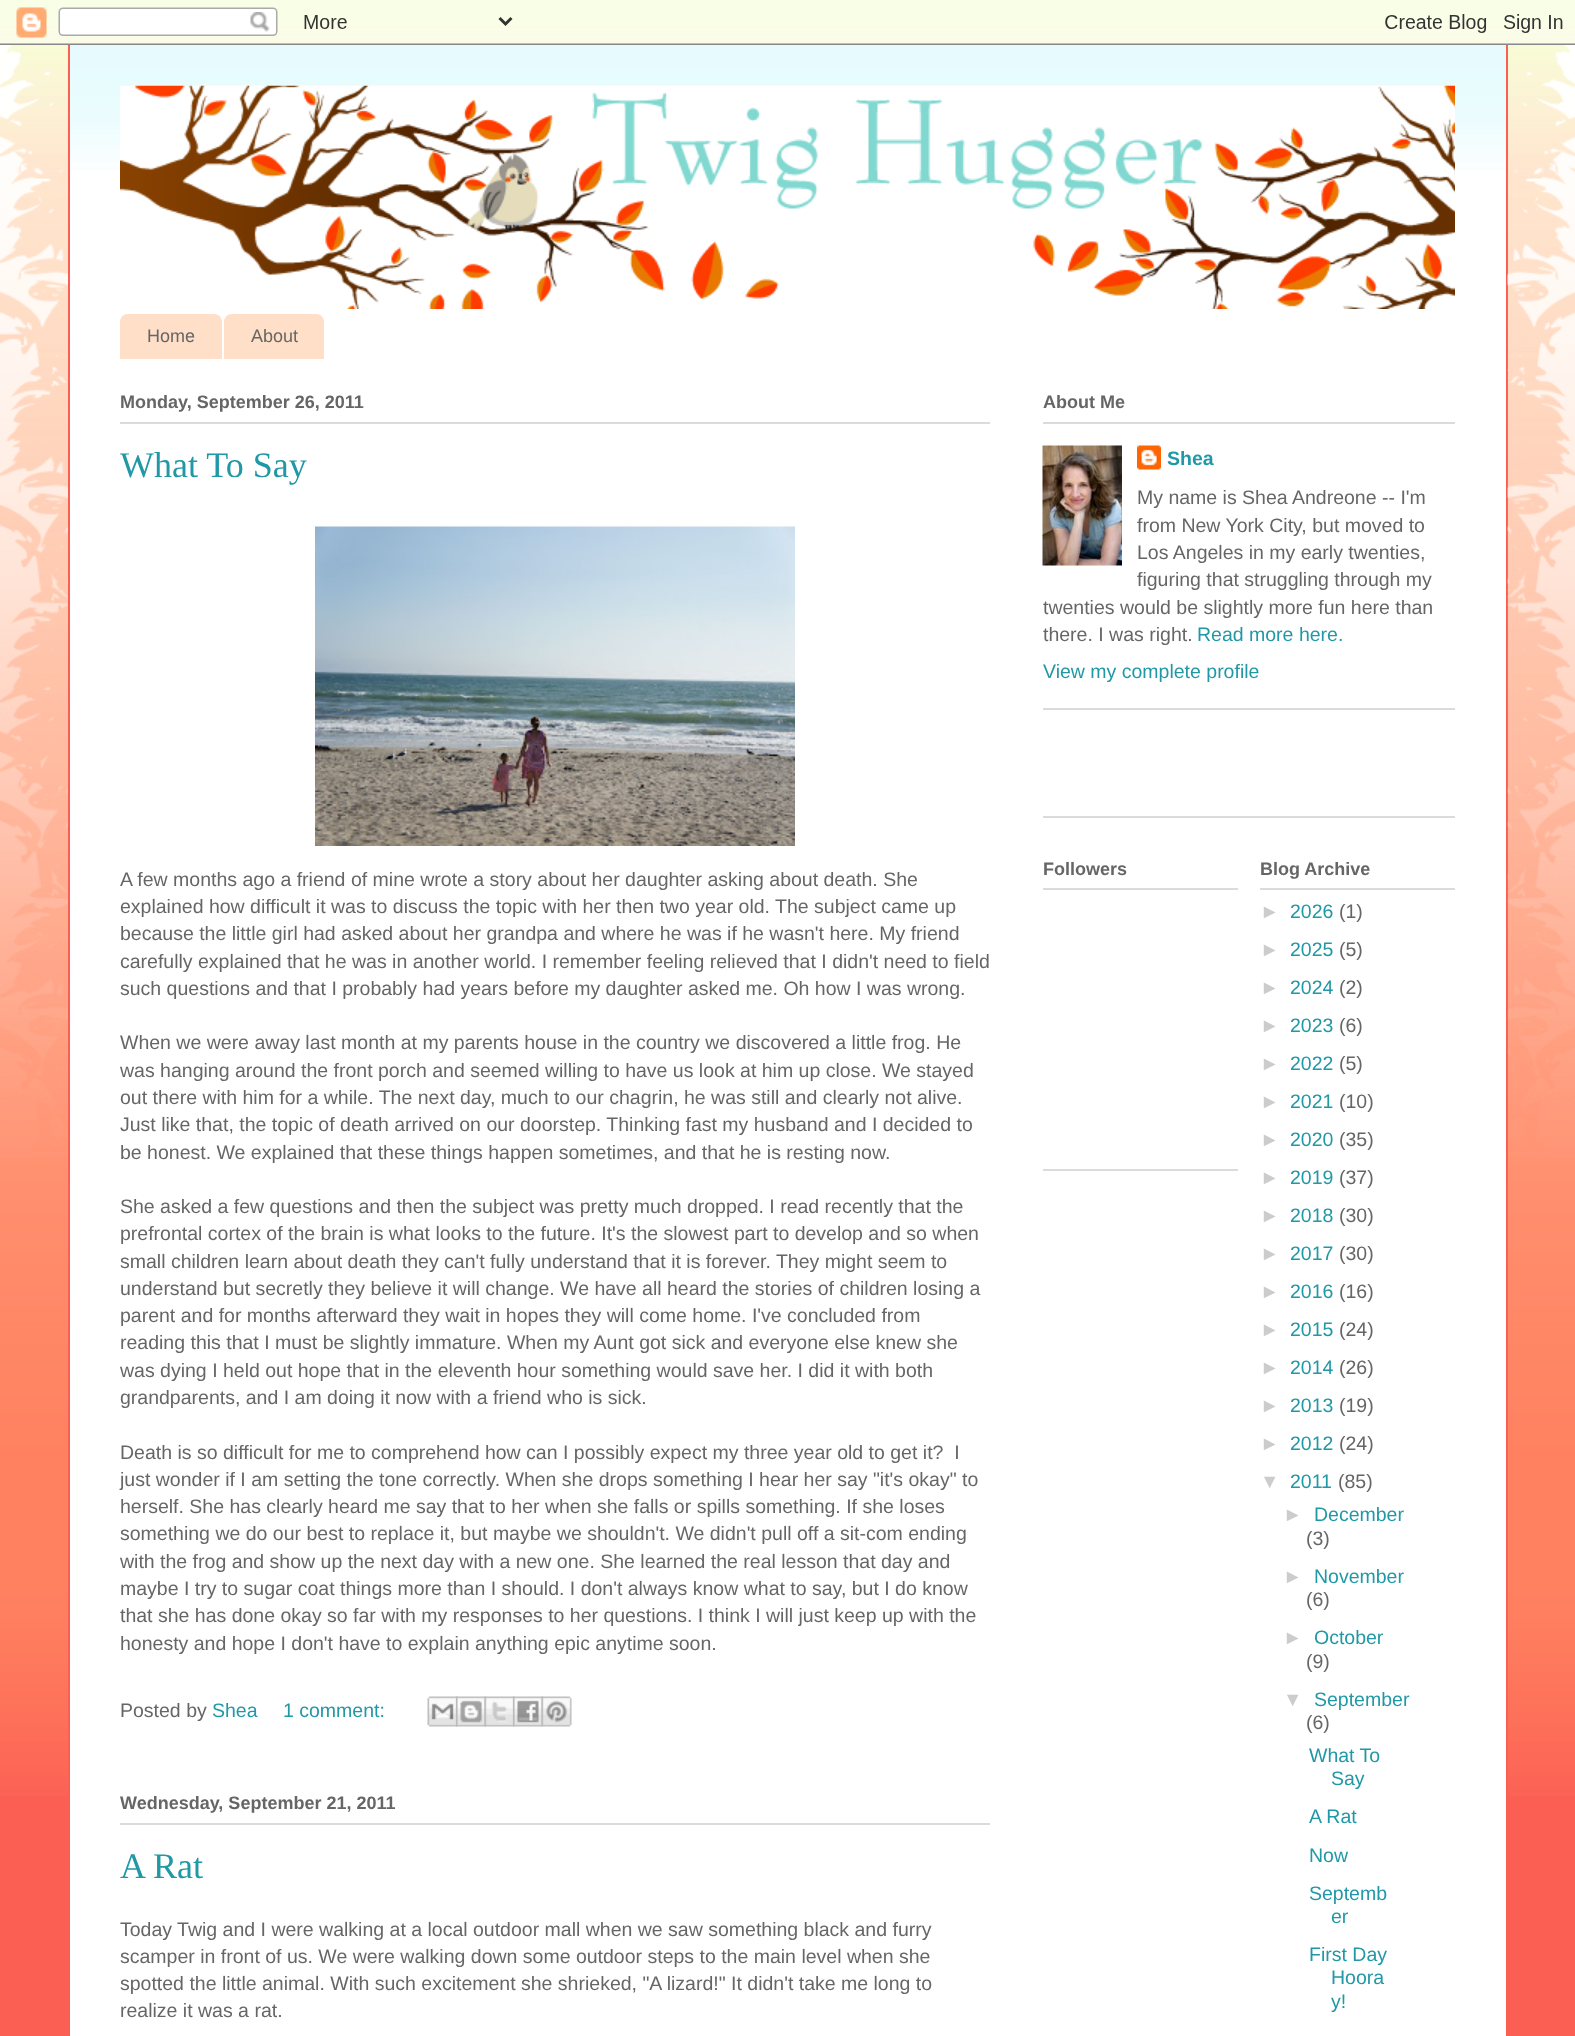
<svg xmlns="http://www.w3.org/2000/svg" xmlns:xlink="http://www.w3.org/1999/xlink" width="1575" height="2036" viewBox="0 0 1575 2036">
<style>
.cls-1{font:18px Liberation Sans;fill:#666666}
.cls-2{font:bold 18px Liberation Sans;fill:#666666}
.cls-3{font:36px Liberation Serif;fill:#2198a6}
.cls-4{font:19.5px Liberation Sans;fill:#666666}
.cls-5{font:19.5px Liberation Sans;fill:#2198a6}
.cls-6{font:bold 19.5px Liberation Sans;fill:#2198a6}
.cls-7{font:19.5px Liberation Sans;fill:#cccccc}
</style>
<rect width="100%" height="100%" fill="#fb5e53"/>
<image xlink:href="image0.png" x="0" y="0" width="1575" height="1796"/>
<image xlink:href="image1.png" x="0" y="0" width="1575" height="45"/>
<image xlink:href="image2.png" x="0" y="45" width="68" height="1112"/>
<rect fill="#ffffff" x="70" y="45" width="1436" height="1991"/>
<image xlink:href="image3.png" x="67" y="45" width="1439" height="126"/>
<rect fill="#fb5e53" x="1506" y="45" width="2" height="1751"/>
<rect fill="#fb5e53" x="68" y="45" width="2" height="1751"/>
<image xlink:href="image4.png" x="1507" y="45" width="68" height="1112"/>
<image xlink:href="image5.png" x="120" y="85" width="1335" height="224"/>
<path fill="#ffdfc7" d="M128 314H214C218.5 314 222 317.5 222 322V359H120V322C120 317.5 123.5 314 128 314Z"/>
<path fill="#ffdfc7" d="M232 314H316C320.5 314 324 317.5 324 322V359H224V322C224 317.5 227.5 314 232 314Z"/>
<rect fill="#dbdbdb" x="120" y="422" width="870" height="2"/>
<image xlink:href="image6.png" x="315" y="526" width="480" height="320"/>
<image xlink:href="image7.png" x="427" y="1696" width="31" height="31"/>
<image xlink:href="image8.png" x="456" y="1696" width="30" height="31"/>
<image xlink:href="image9.png" x="484" y="1696" width="31" height="31"/>
<image xlink:href="image10.png" x="513" y="1696" width="30" height="31"/>
<image xlink:href="image11.png" x="541" y="1696" width="31" height="31"/>
<rect fill="#dbdbdb" x="120" y="1823" width="870" height="2"/>
<rect fill="#dbdbdb" x="1043" y="708" width="412" height="2"/>
<rect fill="#dbdbdb" x="1043" y="422" width="412" height="2"/>
<image xlink:href="image12.png" x="1042" y="445" width="80" height="121"/>
<image xlink:href="image13.png" x="1137" y="445" width="24" height="25"/>
<rect fill="#dbdbdb" x="1043" y="816" width="412" height="2"/>
<rect fill="#dbdbdb" x="1043" y="1169" width="195" height="2"/>
<rect fill="#dbdbdb" x="1043" y="888" width="195" height="2"/>
<rect fill="#dbdbdb" x="1260" y="888" width="195" height="2"/>
<text class="cls-1" x="147" y="342">Home</text>
<text class="cls-1" x="251" y="342">About</text>
<text class="cls-2" x="120" y="408">Monday, September 26, 2011</text>
<text class="cls-3" x="120" y="477">What To Say</text>
<text class="cls-4"><tspan x="120" y="886">A few months ago a friend of mine wrote a story about her daughter asking about death. She</tspan><tspan x="120" y="913">explained how difficult it was to discuss the topic with her then two year old. The subject came up</tspan><tspan x="120" y="940">because the little girl had asked about her grandpa and where he was if he wasn't here. My friend</tspan><tspan x="120" y="968">carefully explained that he was in another world. I remember feeling relieved that I didn't need to field</tspan><tspan x="120" y="995">such questions and that I probably had years before my daughter asked me. Oh how I was wrong.</tspan></text>
<text class="cls-4"><tspan x="120" y="1049">When we were away last month at my parents house in the country we discovered a little frog. He</tspan><tspan x="120" y="1077">was hanging around the front porch and seemed willing to have us look at him up close. We stayed</tspan><tspan x="120" y="1104">out there with him for a while. The next day, much to our chagrin, he was still and clearly not alive.</tspan><tspan x="120" y="1131">Just like that, the topic of death arrived on our doorstep. Thinking fast my husband and I decided to</tspan><tspan x="120" y="1159">be honest. We explained that these things happen sometimes, and that he is resting now.</tspan></text>
<text class="cls-4"><tspan x="120" y="1213">She asked a few questions and then the subject was pretty much dropped. I read recently that the</tspan><tspan x="120" y="1240">prefrontal cortex of the brain is what looks to the future. It's the slowest part to develop and so when</tspan><tspan x="120" y="1268">small children learn about death they can't fully understand that it is forever. They might seem to</tspan><tspan x="120" y="1295">understand but secretly they believe it will change. We have all heard the stories of children losing a</tspan><tspan x="120" y="1322">parent and for months afterward they wait in hopes they will come home. I've concluded from</tspan><tspan x="120" y="1349">reading this that I must be slightly immature. When my Aunt got sick and everyone else knew she</tspan><tspan x="120" y="1377">was dying I held out hope that in the eleventh hour something would save her. I did it with both</tspan><tspan x="120" y="1404">grandparents, and I am doing it now with a friend who is sick.</tspan></text>
<text class="cls-4" xml:space="preserve"><tspan x="120" y="1459">Death is so difficult for me to comprehend how can I possibly expect my three year old to get it?  I</tspan><tspan x="120" y="1486">just wonder if I am setting the tone correctly. When she drops something I hear her say "it's okay" to</tspan><tspan x="120" y="1513">herself. She has clearly heard me say that to her when she falls or spills something. If she loses</tspan><tspan x="120" y="1540">something we do our best to replace it, but maybe we shouldn't. We didn't pull off a sit-com ending</tspan><tspan x="120" y="1568">with the frog and show up the next day with a new one. She learned the real lesson that day and</tspan><tspan x="120" y="1595">maybe I try to sugar coat things more than I should. I don't always know what to say, but I do know</tspan><tspan x="120" y="1622">that she has done okay so far with my responses to her questions. I think I will just keep up with the</tspan><tspan x="120" y="1650">honesty and hope I don't have to explain anything epic anytime soon.</tspan></text>
<text class="cls-4" x="120" y="1717">Posted by</text>
<text class="cls-5" x="212" y="1717">Shea</text>
<text class="cls-5" x="283" y="1717">1 comment:</text>
<text class="cls-2" x="120" y="1809">Wednesday, September 21, 2011</text>
<text class="cls-3" x="120" y="1878">A Rat</text>
<text class="cls-4"><tspan x="120" y="1936">Today Twig and I were walking at a local outdoor mall when we saw something black and furry</tspan><tspan x="120" y="1963">scamper in front of us. We were walking down some outdoor steps to the main level when she</tspan><tspan x="120" y="1990">spotted the little animal. With such excitement she shrieked, "A lizard!" It didn't take me long to</tspan><tspan x="120" y="2017">realize it was a rat.</tspan></text>
<text class="cls-2" x="1043" y="408">About Me</text>
<text class="cls-6" x="1167" y="465">Shea</text>
<text class="cls-4"><tspan x="1137" y="504">My name is Shea Andreone -- I'm</tspan><tspan x="1137" y="532">from New York City, but moved to</tspan><tspan x="1137" y="559">Los Angeles in my early twenties,</tspan><tspan x="1137" y="586">figuring that struggling through my</tspan></text>
<text class="cls-4"><tspan x="1043" y="614">twenties would be slightly more fun here than</tspan><tspan x="1043" y="641">there. I was right.</tspan></text>
<text class="cls-5" x="1197" y="641">Read more here.</text>
<text class="cls-5" x="1043" y="678">View my complete profile</text>
<text class="cls-2" x="1043" y="875">Followers</text>
<text class="cls-2" x="1260" y="875">Blog Archive</text>
<text class="cls-7" x="1260" y="918">►</text>
<text class="cls-5" x="1290" y="918">2026</text>
<text class="cls-4" x="1339" y="918">(1)</text>
<text class="cls-7" x="1260" y="956">►</text>
<text class="cls-5" x="1290" y="956">2025</text>
<text class="cls-4" x="1339" y="956">(5)</text>
<text class="cls-7" x="1260" y="994">►</text>
<text class="cls-5" x="1290" y="994">2024</text>
<text class="cls-4" x="1339" y="994">(2)</text>
<text class="cls-7" x="1260" y="1032">►</text>
<text class="cls-5" x="1290" y="1032">2023</text>
<text class="cls-4" x="1339" y="1032">(6)</text>
<text class="cls-7" x="1260" y="1070">►</text>
<text class="cls-5" x="1290" y="1070">2022</text>
<text class="cls-4" x="1339" y="1070">(5)</text>
<text class="cls-7" x="1260" y="1108">►</text>
<text class="cls-5" x="1290" y="1108">2021</text>
<text class="cls-4" x="1339" y="1108">(10)</text>
<text class="cls-7" x="1260" y="1146">►</text>
<text class="cls-5" x="1290" y="1146">2020</text>
<text class="cls-4" x="1339" y="1146">(35)</text>
<text class="cls-7" x="1260" y="1184">►</text>
<text class="cls-5" x="1290" y="1184">2019</text>
<text class="cls-4" x="1339" y="1184">(37)</text>
<text class="cls-7" x="1260" y="1222">►</text>
<text class="cls-5" x="1290" y="1222">2018</text>
<text class="cls-4" x="1339" y="1222">(30)</text>
<text class="cls-7" x="1260" y="1260">►</text>
<text class="cls-5" x="1290" y="1260">2017</text>
<text class="cls-4" x="1339" y="1260">(30)</text>
<text class="cls-7" x="1260" y="1298">►</text>
<text class="cls-5" x="1290" y="1298">2016</text>
<text class="cls-4" x="1339" y="1298">(16)</text>
<text class="cls-7" x="1260" y="1336">►</text>
<text class="cls-5" x="1290" y="1336">2015</text>
<text class="cls-4" x="1339" y="1336">(24)</text>
<text class="cls-7" x="1260" y="1374">►</text>
<text class="cls-5" x="1290" y="1374">2014</text>
<text class="cls-4" x="1339" y="1374">(26)</text>
<text class="cls-7" x="1260" y="1412">►</text>
<text class="cls-5" x="1290" y="1412">2013</text>
<text class="cls-4" x="1339" y="1412">(19)</text>
<text class="cls-7" x="1260" y="1450">►</text>
<text class="cls-5" x="1290" y="1450">2012</text>
<text class="cls-4" x="1339" y="1450">(24)</text>
<text class="cls-7" x="1260" y="1488">▼</text>
<text class="cls-5" x="1290" y="1488">2011</text>
<text class="cls-4" x="1338" y="1488">(85)</text>
<text class="cls-7" x="1283" y="1521">►</text>
<text class="cls-5" x="1314" y="1521">December</text>
<text class="cls-4" x="1306" y="1545">(3)</text>
<text class="cls-7" x="1283" y="1583">►</text>
<text class="cls-5" x="1314" y="1583">November</text>
<text class="cls-4" x="1306" y="1606">(6)</text>
<text class="cls-7" x="1283" y="1644">►</text>
<text class="cls-5" x="1314" y="1644">October</text>
<text class="cls-4" x="1306" y="1668">(9)</text>
<text class="cls-7" x="1283" y="1706">▼</text>
<text class="cls-5" x="1314" y="1706">September</text>
<text class="cls-4" x="1306" y="1729">(6)</text>
<text class="cls-5" x="1309" y="1762">What To</text>
<text class="cls-5" x="1331" y="1785">Say</text>
<text class="cls-5" x="1309" y="1823">A Rat</text>
<text class="cls-5"><tspan x="1309" y="1862">Now</tspan><tspan x="1309" y="1900">Septemb</tspan></text>
<text class="cls-5" x="1331" y="1923">er</text>
<text class="cls-5" x="1309" y="1961">First Day</text>
<text class="cls-5"><tspan x="1331" y="1984">Hoora</tspan><tspan x="1331" y="2008">y!</tspan></text>
</svg>
